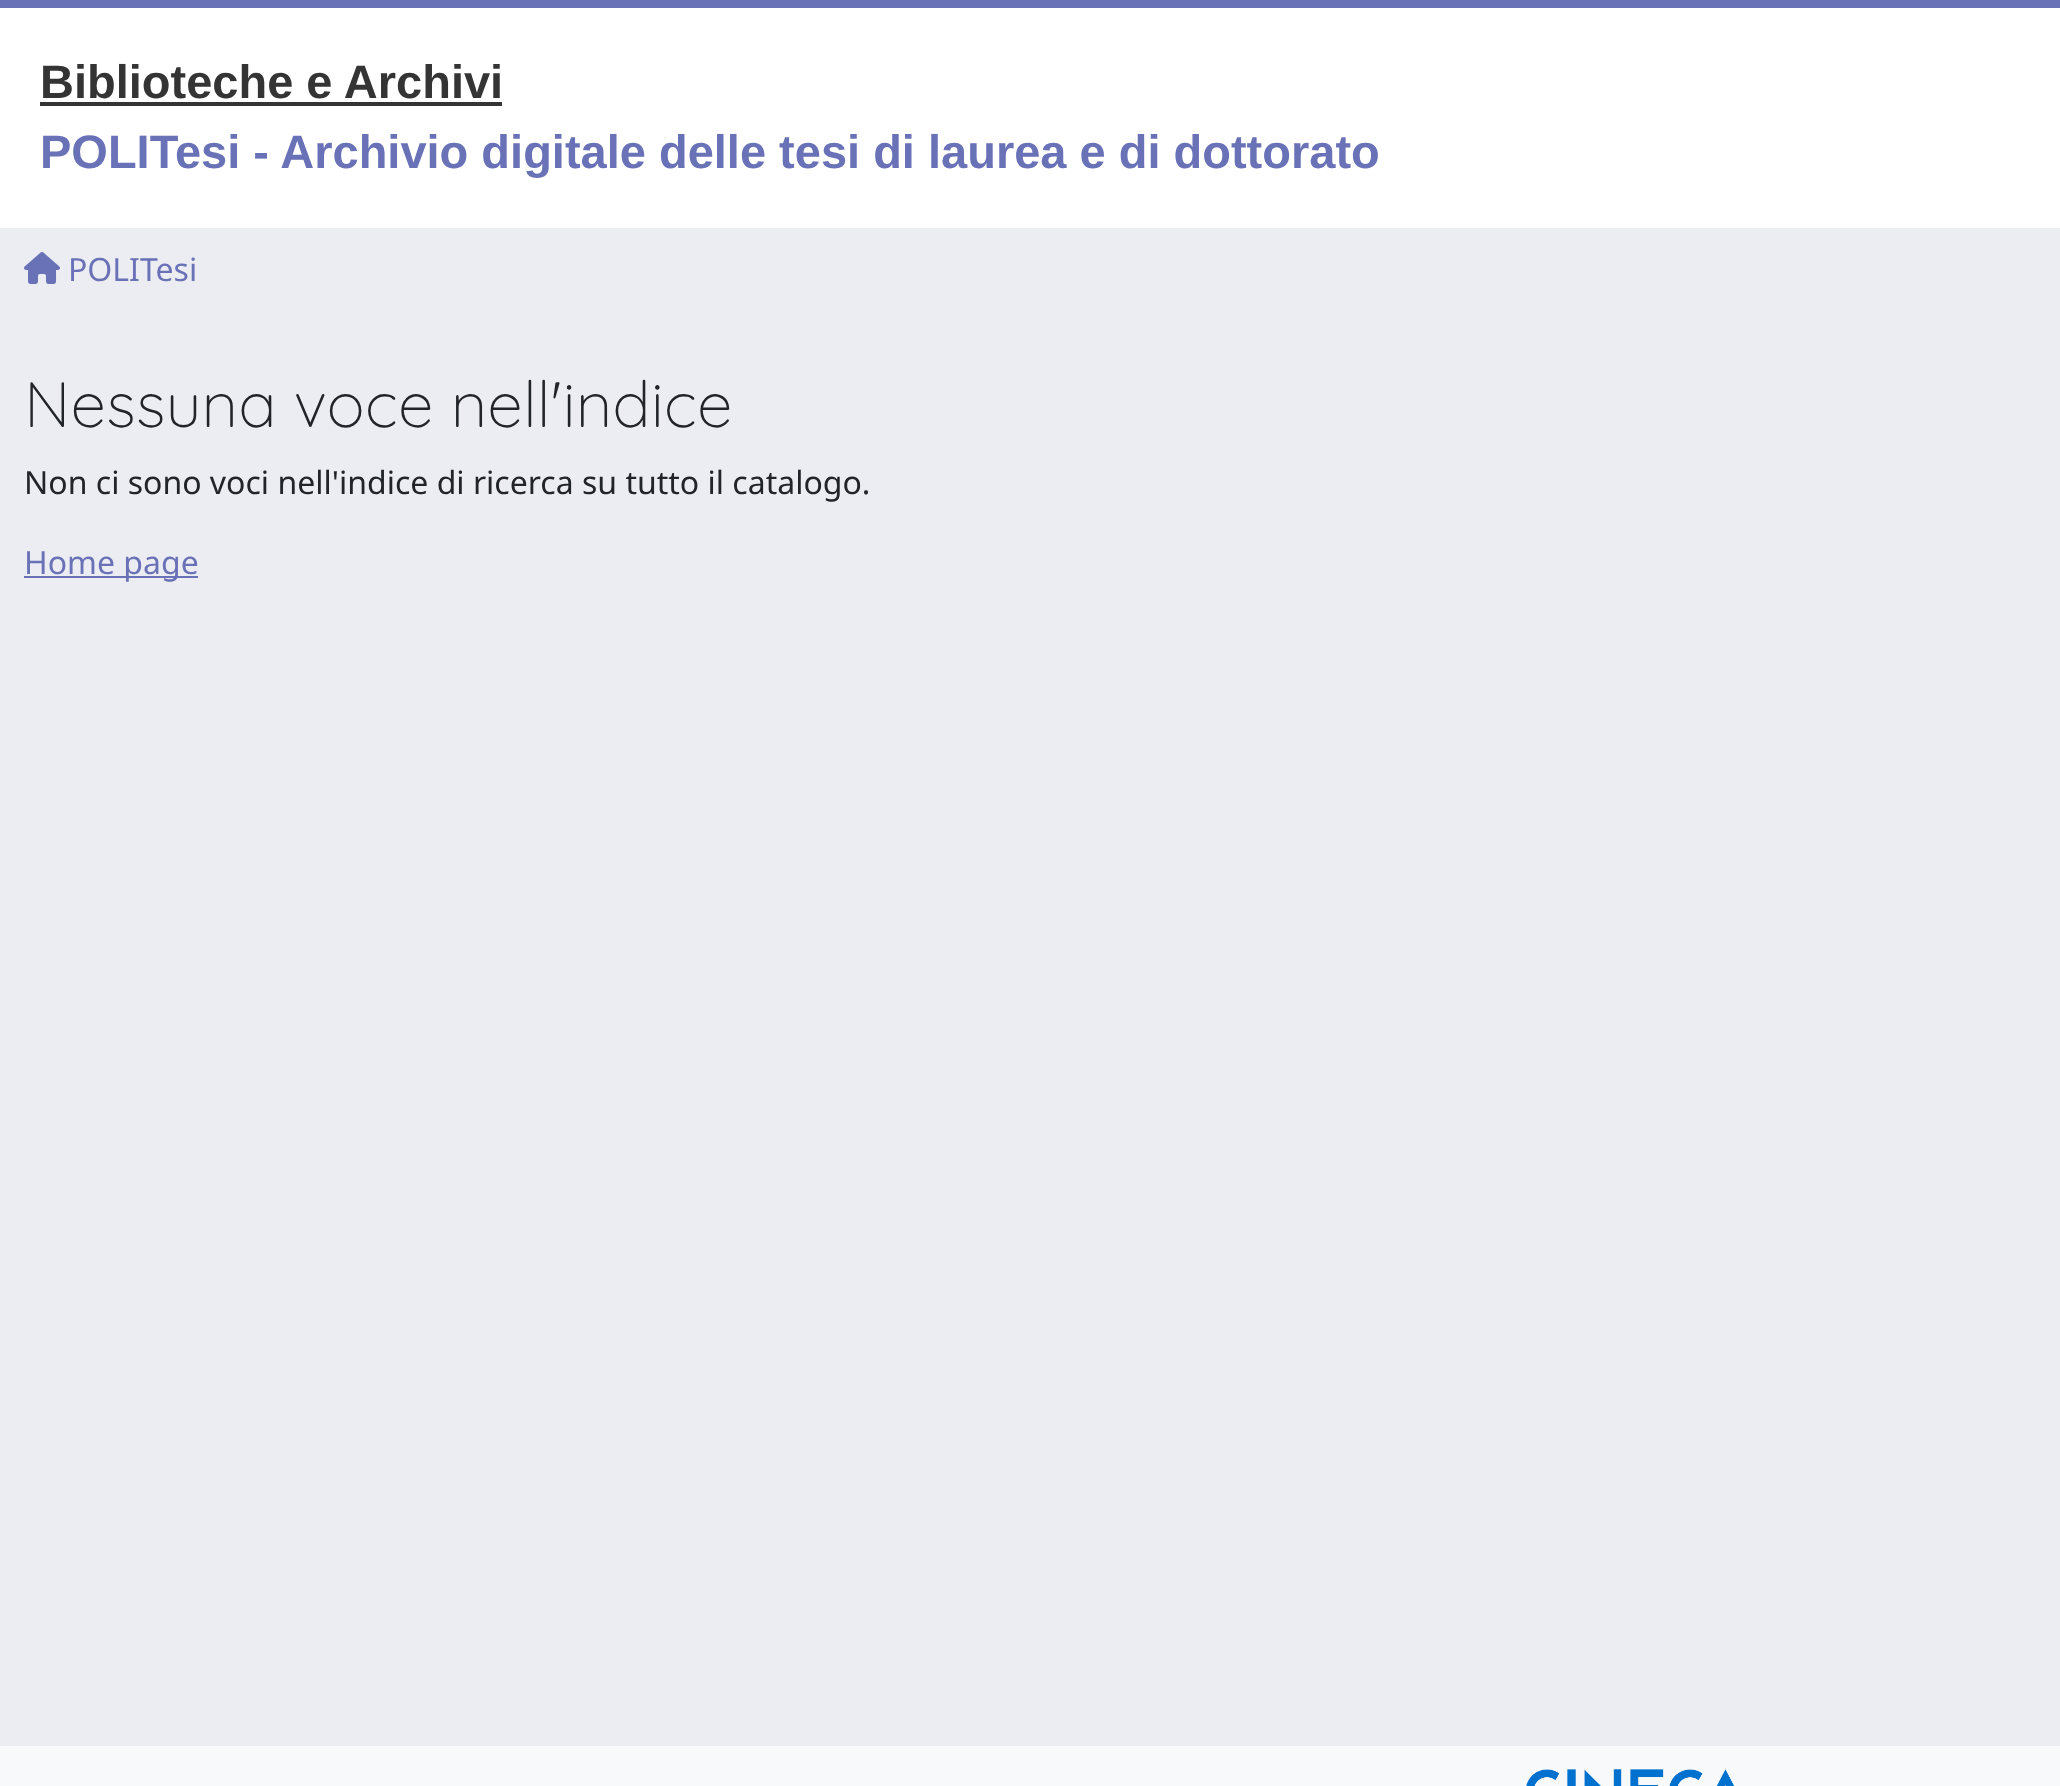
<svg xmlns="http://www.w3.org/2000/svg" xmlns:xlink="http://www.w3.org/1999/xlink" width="2060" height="1786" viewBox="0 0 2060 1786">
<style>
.cls-1{font:bold 47px Liberation Sans;fill:#343434}
.cls-2{font:bold 47px Liberation Sans;fill:#6971b7}
.cls-3{font:32px Noto Sans;fill:#6971b7}
.cls-4{font:300 64px Quicksand;fill:#212529}
.cls-5{font:32px Noto Sans;fill:#212529}
</style>
<rect width="100%" height="100%" fill="#ecedf2"/>
<rect fill="#6971b7" x="0" y="0" width="2060" height="8"/>
<rect fill="#ffffff" x="0" y="8" width="2060" height="220"/>
<rect fill="#343434" x="40" y="102" width="462" height="4"/>
<image xlink:href="image0.png" x="24" y="252" width="36" height="32"/>
<rect fill="#6971b7" x="24" y="576" width="174" height="2"/>
<rect fill="#f8f9fa" x="0" y="1746" width="2060" height="40"/>
<image xlink:href="image1.png" x="1526" y="1769" width="209" height="17"/>
<text class="cls-1" x="40" y="98">Biblioteche e Archivi</text>
<text class="cls-2" x="40" y="168">POLITesi - Archivio digitale delle tesi di laurea e di dottorato</text>
<text class="cls-3" x="68" y="281">POLITesi</text>
<text class="cls-4" x="24" y="427">Nessuna voce nell'indice</text>
<text class="cls-5" x="24" y="494">Non ci sono voci nell'indice di ricerca su tutto il catalogo.</text>
<text class="cls-3" x="24" y="574">Home page</text>
</svg>
